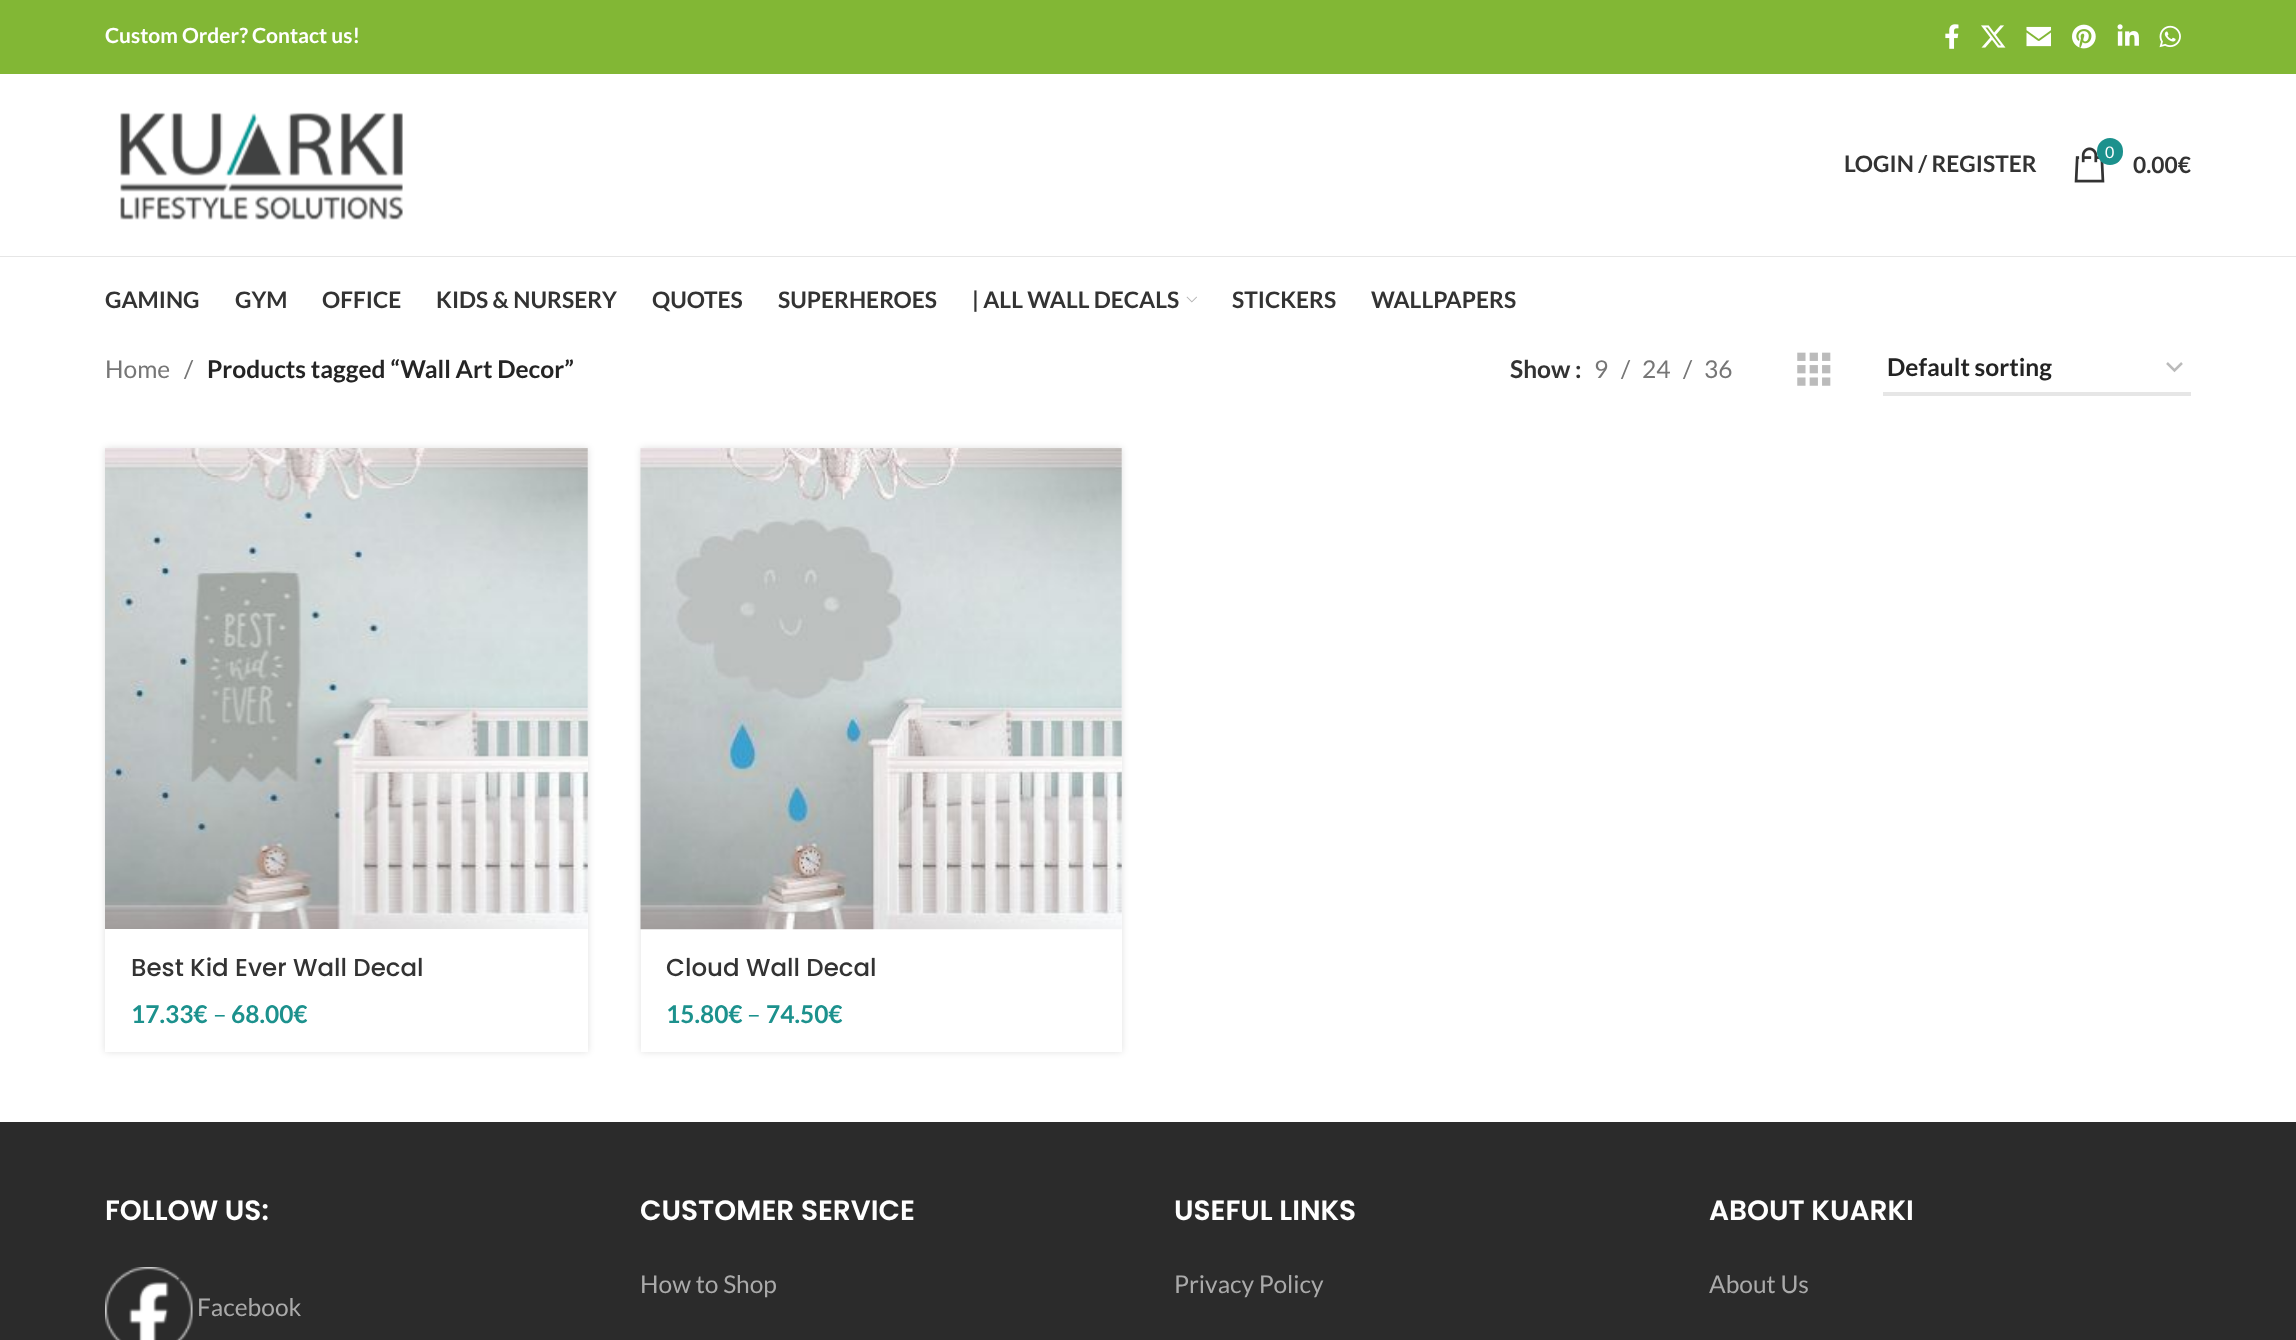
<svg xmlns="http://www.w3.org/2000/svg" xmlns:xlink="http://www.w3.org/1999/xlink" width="2296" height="1340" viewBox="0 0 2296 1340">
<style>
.cls-1{font:bold 21px Lato;fill:#ffffff}
.cls-2{font:bold 22.75px Lato;fill:#333333}
.cls-3{font:16px Lato;fill:#ffffff}
.cls-4{font:24.5px Lato;fill:#767676}
.cls-5{font:bold 24.5px Lato;fill:#242424}
.cls-6{font:bold 24.5px Lato;fill:#333333}
.cls-7{font:500 24.5px Poppins;fill:#333333}
.cls-8{font:bold 24.5px Lato;fill:#1c918d}
.cls-9{font:24.5px Lato;fill:#1c918d}
.cls-10{font:600 28px Poppins;fill:#ffffff}
.cls-11{font:24.5px Lato;fill:#aaaaaa}
</style>
<rect width="100%" height="100%" fill="#ffffff"/>
<rect fill="#82b735" x="0" y="0" width="2296" height="74"/>
<image xlink:href="image0.png" x="1945" y="24" width="14" height="25"/>
<image xlink:href="image1.png" x="1981" y="25" width="25" height="23"/>
<image xlink:href="image2.png" x="2026" y="26" width="25" height="21"/>
<image xlink:href="image3.png" x="2072" y="24" width="24" height="25"/>
<image xlink:href="image4.png" x="2117" y="24" width="22" height="22"/>
<image xlink:href="image5.png" x="2159" y="25" width="22" height="23"/>
<rect fill="#e6e6e6" x="0" y="256" width="2296" height="1"/>
<image xlink:href="image6.png" x="120" y="112" width="283" height="108"/>
<image xlink:href="image7.png" x="2074" y="147" width="31" height="36"/>
<rect fill="#1c918d" x="2097" y="138" width="26" height="27" rx="13"/>
<image xlink:href="image8.png" x="1186" y="296" width="11" height="7"/>
<image xlink:href="image9.png" x="1797" y="352" width="34" height="34"/>
<path fill="none" stroke="#bbbbbb" stroke-width="2.5" d="M2167 363L2174.5 370.5L2182 363"/>
<rect fill="#e6e6e6" x="1883" y="392" width="308" height="4"/>
<rect fill="#000000" fill-opacity="0.12" filter="blur(3.5px)" x="105" y="448" width="483" height="604"/>
<rect fill="#ffffff" x="105" y="448" width="483" height="604"/>
<image xlink:href="image10.png" x="105" y="448" width="483" height="481"/>
<rect fill="#000000" fill-opacity="0.12" filter="blur(3.5px)" x="641" y="448" width="481" height="604"/>
<rect fill="#ffffff" x="641" y="448" width="481" height="604"/>
<image xlink:href="image11.png" x="640" y="448" width="482" height="482"/>
<rect fill="#2b2b2b" x="0" y="1122" width="2296" height="218"/>
<image xlink:href="image12.png" x="105" y="1267" width="88" height="73"/>
<text class="cls-1" x="105" y="43">Custom Order? Contact us!</text>
<text class="cls-2" x="1844" y="172">LOGIN / REGISTER</text>
<text class="cls-3" x="2105" y="158">0</text>
<text class="cls-2" x="2133" y="173">0.00€</text>
<text class="cls-2" x="105" y="308">GAMING</text>
<text class="cls-2" x="235" y="308">GYM</text>
<text class="cls-2" x="322" y="308">OFFICE</text>
<text class="cls-2" x="436" y="308">KIDS &amp; NURSERY</text>
<text class="cls-2" x="652" y="308">QUOTES</text>
<text class="cls-2" x="778" y="308">SUPERHEROES</text>
<text class="cls-2" x="972" y="308">| ALL WALL DECALS</text>
<text class="cls-2" x="1232" y="308">STICKERS</text>
<text class="cls-2" x="1371" y="308">WALLPAPERS</text>
<text class="cls-4" x="105" y="378">Home</text>
<text class="cls-4" x="184" y="378">/</text>
<text class="cls-5" x="207" y="378">Products tagged “Wall Art Decor”</text>
<text class="cls-6" x="1510" y="378">Show :</text>
<text class="cls-4" x="1594" y="378">9</text>
<text class="cls-4" x="1621" y="378">/</text>
<text class="cls-4" x="1642" y="378">24</text>
<text class="cls-4" x="1683" y="378">/</text>
<text class="cls-4" x="1704" y="378">36</text>
<text class="cls-5" x="1887" y="376">Default sorting</text>
<text class="cls-7" x="131" y="976">Best Kid Ever Wall Decal</text>
<text class="cls-8" x="131" y="1023">17.33€</text>
<text class="cls-9" x="213" y="1023">–</text>
<text class="cls-8" x="231" y="1023">68.00€</text>
<text class="cls-7" x="666" y="976">Cloud Wall Decal</text>
<text class="cls-8" x="666" y="1023">15.80€</text>
<text class="cls-9" x="747" y="1023">–</text>
<text class="cls-8" x="766" y="1023">74.50€</text>
<text class="cls-10" x="105" y="1220">FOLLOW US:</text>
<text class="cls-11" x="197" y="1316">Facebook</text>
<text class="cls-10" x="640" y="1220">CUSTOMER SERVICE</text>
<text class="cls-11" x="640" y="1293">How to Shop</text>
<text class="cls-10" x="1174" y="1220">USEFUL LINKS</text>
<text class="cls-11" x="1174" y="1293">Privacy Policy</text>
<text class="cls-10" x="1709" y="1220">ABOUT KUARKI</text>
<text class="cls-11" x="1709" y="1293">About Us</text>
</svg>
